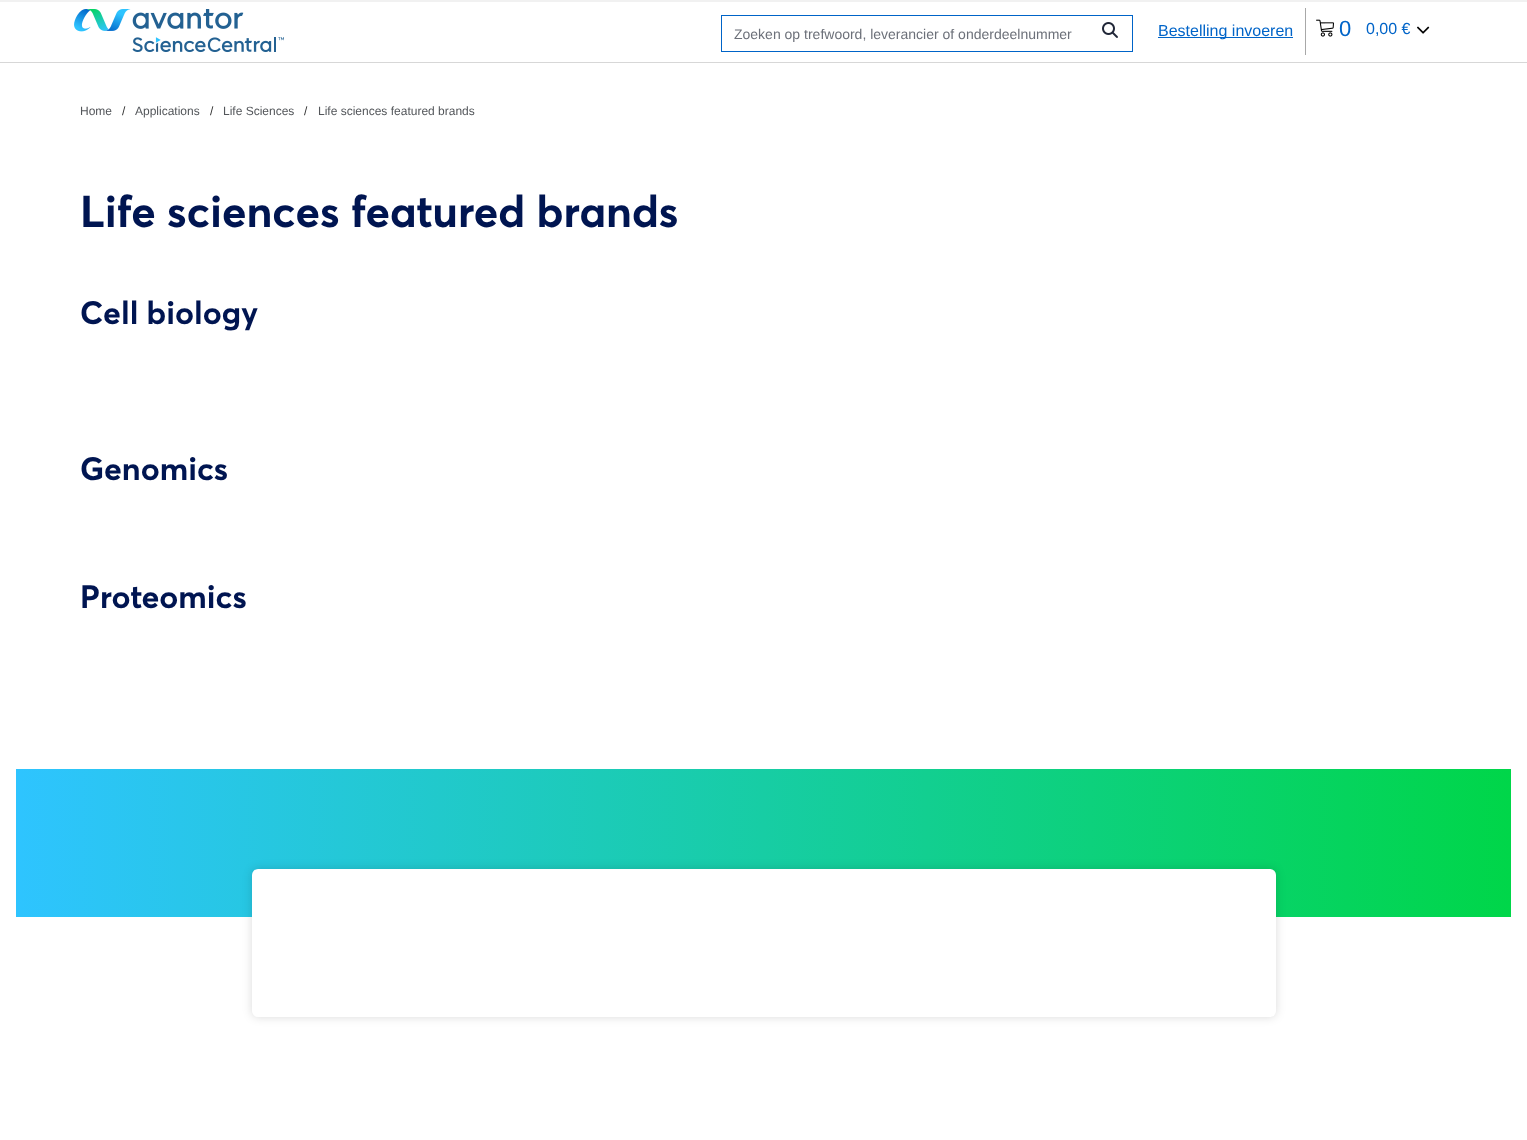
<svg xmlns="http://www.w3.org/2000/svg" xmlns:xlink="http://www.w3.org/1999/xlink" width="1527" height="1140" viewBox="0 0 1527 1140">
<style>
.cls-1{font:14px Liberation Sans;fill:#6c7079}
.cls-2{font:16px Liberation Sans;fill:#0064c8}
.cls-3{font:22px Liberation Sans;fill:#0064c8}
.cls-4{font:12px Liberation Sans;fill:#53565a}
.cls-5{font:12px Liberation Sans;fill:#333333}
.cls-6{font:bold 44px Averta;fill:#001551}
.cls-7{font:bold 32px Averta;fill:#001551}
</style>
<defs>
<linearGradient id="g1" gradientUnits="userSpaceOnUse" x1="16" y1="843" x2="1511" y2="843"><stop offset="0" stop-color="#2ec4ff"/><stop offset="1" stop-color="#00d649"/></linearGradient>
</defs>
<rect width="100%" height="100%" fill="#ffffff"/>
<rect fill="#f1f1f1" x="0" y="0" width="1527" height="2"/>
<rect fill="#d7d7d7" x="0" y="62" width="1527" height="1"/>
<image xlink:href="image0.png" x="74" y="9" width="210" height="44"/>
<rect fill="none" stroke="#0064c8" x="721.5" y="15.5" width="411" height="36"/>
<image xlink:href="image1.png" x="1102" y="22" width="16" height="16"/>
<rect fill="#0064c8" x="1158" y="37" width="135" height="1"/>
<rect fill="#a8a8a8" x="1305" y="8" width="1" height="47"/>
<image xlink:href="image2.png" x="1316" y="19" width="18" height="18"/>
<image xlink:href="image3.png" x="1417" y="26" width="13" height="8"/>
<rect fill="url(#g1)" x="16" y="769" width="1495" height="148"/>
<rect fill="#000000" fill-opacity="0.15" filter="blur(5px)" x="252" y="869" width="1024" height="148" rx="6"/>
<rect fill="#ffffff" x="252" y="869" width="1024" height="148" rx="6"/>
<text class="cls-1" x="734" y="39">Zoeken op trefwoord, leverancier of onderdeelnummer</text>
<text class="cls-2" x="1158" y="36">Bestelling invoeren</text>
<text class="cls-3" x="1339" y="36">0</text>
<text class="cls-2" x="1366" y="34">0,00 €</text>
<text class="cls-4" x="80" y="115">Home</text>
<text class="cls-5" x="122" y="115">/</text>
<text class="cls-4" x="135" y="115">Applications</text>
<text class="cls-5" x="210" y="115">/</text>
<text class="cls-4" x="223" y="115">Life Sciences</text>
<text class="cls-5" x="304" y="115">/</text>
<text class="cls-4" x="318" y="115">Life sciences featured brands</text>
<text class="cls-6" x="80" y="227">Life sciences featured brands</text>
<text class="cls-7" x="80" y="324">Cell biology</text>
<text class="cls-7" x="80" y="480">Genomics</text>
<text class="cls-7" x="80" y="608">Proteomics</text>
</svg>
